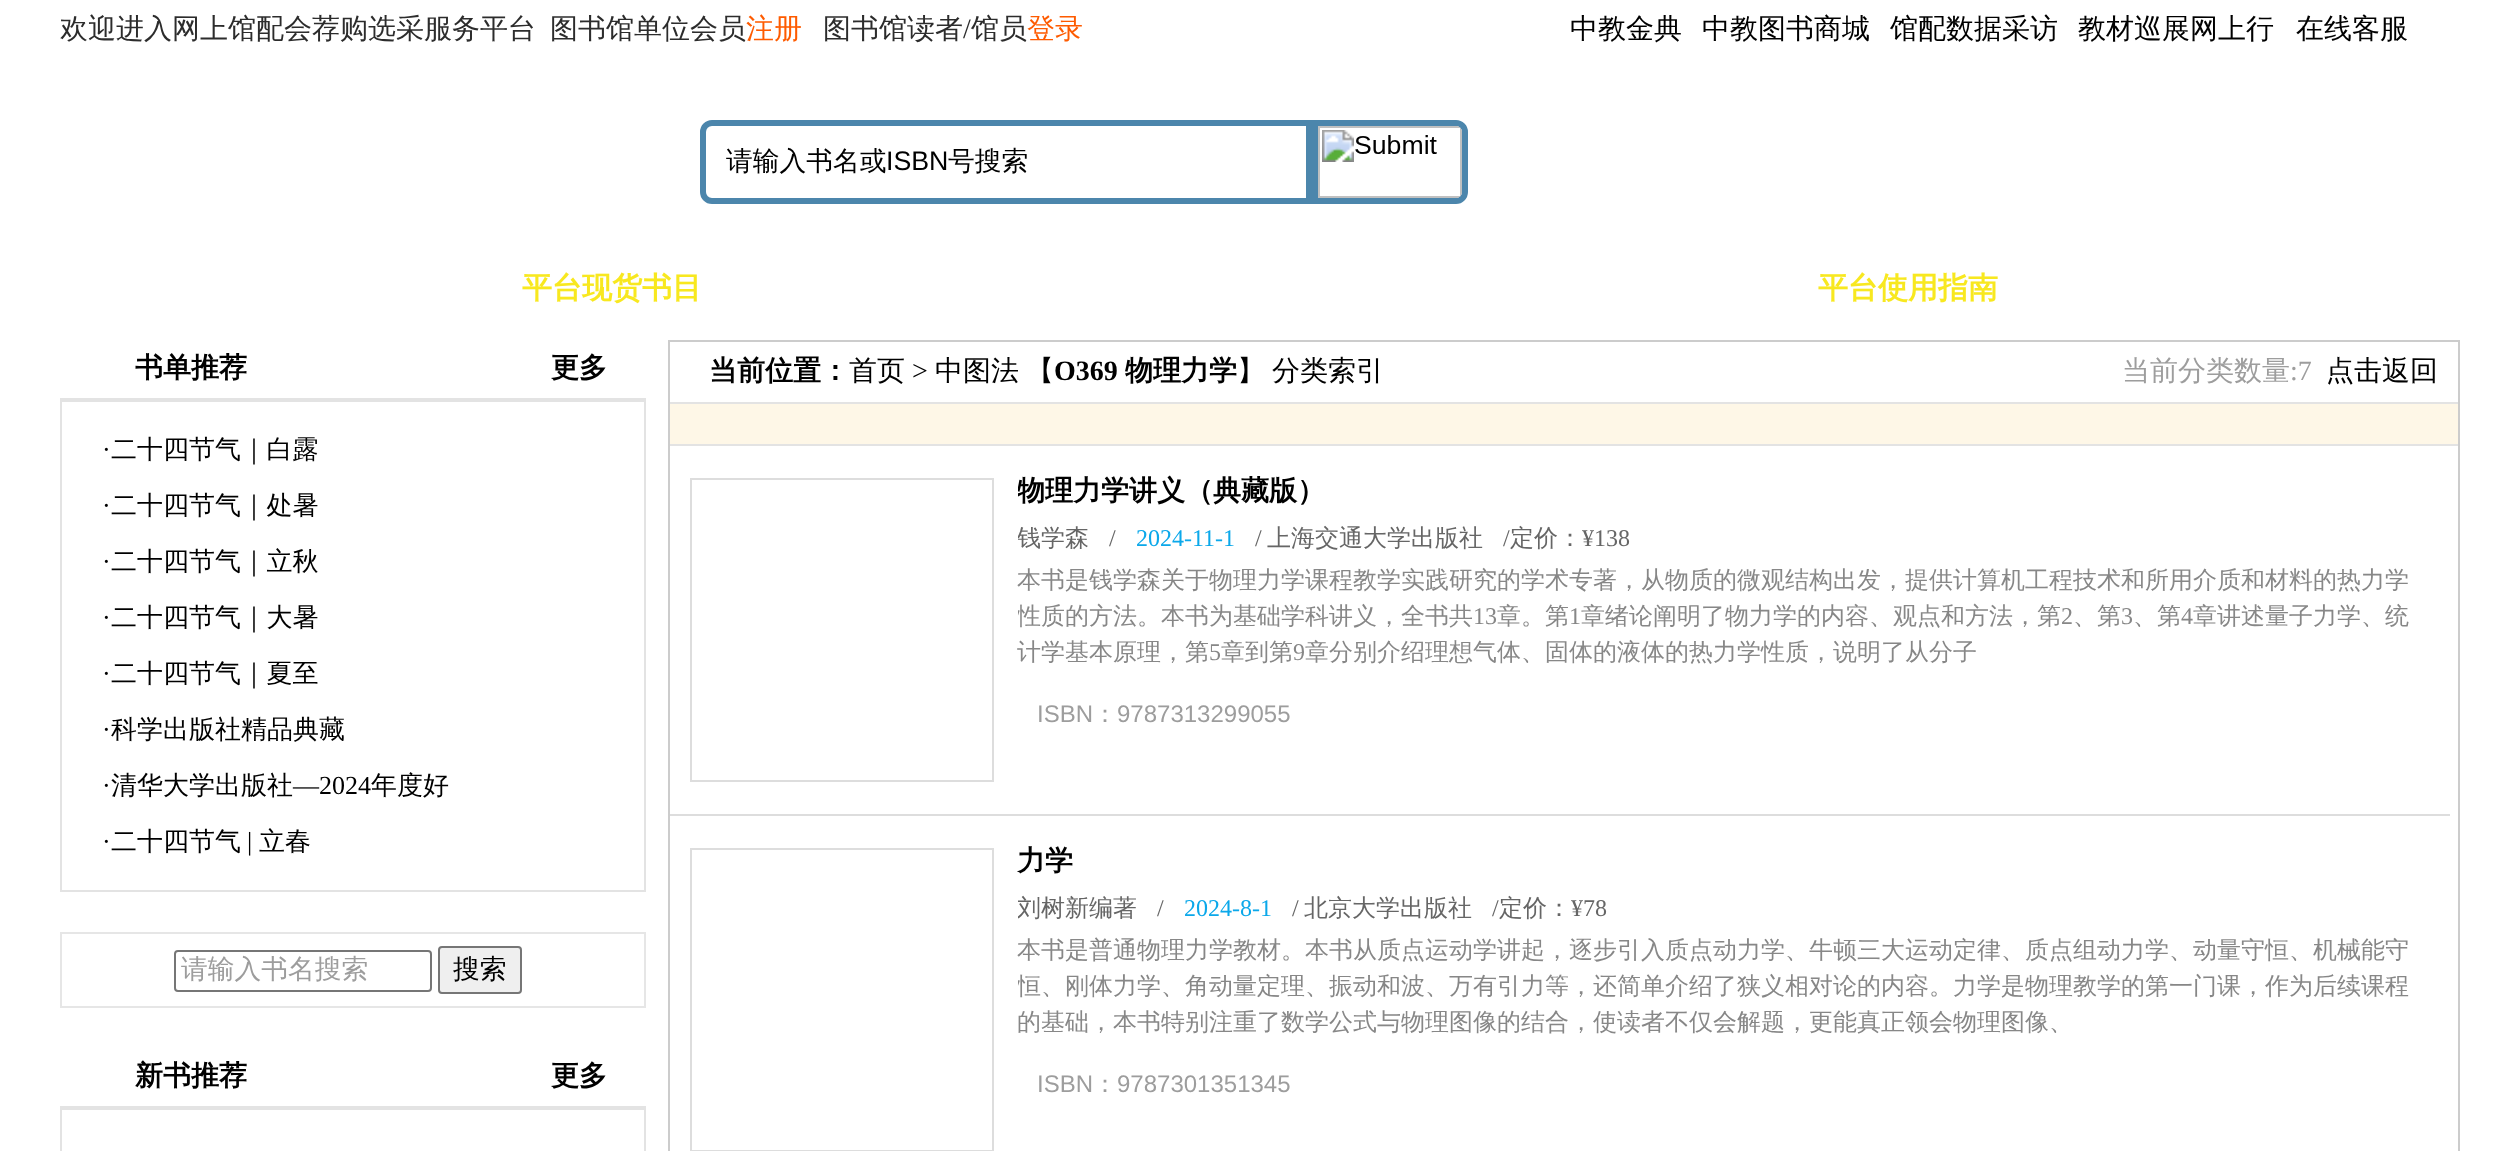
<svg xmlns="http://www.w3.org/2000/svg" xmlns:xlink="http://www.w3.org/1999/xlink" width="2519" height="1151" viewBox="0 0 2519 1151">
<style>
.cls-1{font:500 28px WenQuanYi Zen Hei;fill:#2c2c2c}
.cls-2{font:500 28px WenQuanYi Zen Hei;fill:#fe5b00}
.cls-3{font:28px Liberation Serif;fill:#2c2c2c}
.cls-4{font:500 28px WenQuanYi Zen Hei;fill:#000000}
.cls-5{font:500 26.75px WenQuanYi Zen Hei;fill:#000000}
.cls-6{font:26.75px Liberation Sans;fill:#000000}
.cls-7{font:bold 30px WenQuanYi Zen Hei;fill:#f8e81f}
.cls-8{font:bold 28px WenQuanYi Zen Hei;fill:#000000}
.cls-9{font:26px Liberation Serif;fill:#000000}
.cls-10{font:500 26px WenQuanYi Zen Hei;fill:#000000}
.cls-11{font:500 26.75px WenQuanYi Zen Hei;fill:#9d9d9d}
.cls-12{font:28px Liberation Serif;fill:#000000}
.cls-13{font:bold 28px Liberation Serif;fill:#000000}
.cls-14{font:500 28px WenQuanYi Zen Hei;fill:#9d9d9d}
.cls-15{font:28px Liberation Serif;fill:#9d9d9d}
.cls-16{font:500 24px WenQuanYi Zen Hei;fill:#666666}
.cls-17{font:24px Liberation Serif;fill:#666666}
.cls-18{font:24px Liberation Serif;fill:#0ba8ea}
.cls-19{font:500 24px WenQuanYi Zen Hei;fill:#878787}
.cls-20{font:24px Liberation Serif;fill:#878787}
.cls-21{font:24px Liberation Sans;fill:#9d9d9d}
.cls-22{font:500 24px WenQuanYi Zen Hei;fill:#9d9d9d}
</style>
<defs>
<clipPath id="clip1"><rect x="1018" y="474" width="1400" height="40"/></clipPath>
<clipPath id="clip2"><rect x="1018" y="514" width="1400" height="44"/></clipPath>
<clipPath id="clip3"><rect x="1018" y="562" width="1400" height="112"/></clipPath>
<clipPath id="clip4"><rect x="1018" y="884" width="1400" height="44"/></clipPath>
<clipPath id="clip5"><rect x="1018" y="932" width="1400" height="112"/></clipPath>
</defs>
<rect width="100%" height="100%" fill="#ffffff"/>
<path fill="none" stroke="#4c86ac" stroke-width="6" d="M712 123H1309V201H712C707 201 703 197 703 192V132C703 127 707 123 712 123Z"/>
<path fill="none" stroke="#4c86ac" stroke-width="6" d="M1315 123H1456C1461 123 1465 127 1465 132V192C1465 197 1461 201 1456 201H1315Z"/>
<image xlink:href="image0.png" x="1322" y="126" width="140" height="72"/>
<path fill="#c0c0c0" fill-rule="evenodd" d="M1318 126V198H1456C1459 198 1462 195 1462 192V132C1462 129 1459 126 1456 126ZM1320 128V196H1460V128Z"/>
<rect fill="#e3e3e3" x="60" y="398" width="586" height="2"/>
<rect fill="none" stroke="#e3e3e3" stroke-width="2" x="61" y="401" width="584" height="490"/>
<rect fill="none" stroke="#e6e6e6" stroke-width="2" x="61" y="933" width="584" height="74"/>
<rect fill="none" stroke="#767676" stroke-width="2" x="175" y="951" width="256" height="40" rx="3"/>
<rect fill="#efefef" stroke="#767676" stroke-width="2" x="439" y="947" width="82" height="46" rx="3"/>
<rect fill="#e3e3e3" x="60" y="1106" width="586" height="2"/>
<rect fill="none" stroke="#e3e3e3" stroke-width="2" x="61" y="1109" width="584" height="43"/>
<rect fill="none" stroke="#cccccc" stroke-width="2" x="669" y="341" width="1790" height="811"/>
<rect fill="#e3e3e3" x="670" y="402" width="1788" height="2"/>
<rect fill="#fef7e7" x="670" y="404" width="1788" height="40"/>
<rect fill="#e3e3e3" x="670" y="444" width="1788" height="2"/>
<rect fill="#dddddd" x="670" y="814" width="1780" height="2"/>
<rect fill="none" stroke="#dddddd" stroke-width="2" x="691" y="479" width="302" height="302"/>
<rect fill="none" stroke="#dddddd" stroke-width="2" x="691" y="849" width="302" height="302"/>
<text class="cls-1" x="60" y="38">欢迎进入网上馆配会荐购选采服务平台</text>
<text class="cls-1" x="550" y="38">图书馆单位会员</text>
<text class="cls-2" x="746" y="38">注册</text>
<text class="cls-1" x="823" y="38">图书馆读者</text>
<text class="cls-3" x="963" y="38">/</text>
<text class="cls-1" x="971" y="38">馆员</text>
<text class="cls-2" x="1027" y="38">登录</text>
<text class="cls-4" x="1570" y="38">中教金典</text>
<text class="cls-4" x="1702" y="38">中教图书商城</text>
<text class="cls-4" x="1890" y="38">馆配数据采访</text>
<text class="cls-4" x="2078" y="38">教材巡展网上行</text>
<text class="cls-4" x="2296" y="38">在线客服</text>
<text class="cls-5" x="726" y="170">请输入书名或</text>
<text class="cls-6" x="886" y="170">ISBN</text>
<text class="cls-5" x="948" y="170">号搜索</text>
<text class="cls-7" x="522" y="298">平台现货书目</text>
<text class="cls-7" x="1818" y="298">平台使用指南</text>
<text class="cls-8" x="135" y="377">书单推荐</text>
<text class="cls-8" x="551" y="377">更多</text>
<text class="cls-9" x="102" y="458">·</text>
<text class="cls-10" x="111" y="458">二十四节气｜白露</text>
<text class="cls-9" x="102" y="514">·</text>
<text class="cls-10" x="111" y="514">二十四节气｜处暑</text>
<text class="cls-9" x="102" y="570">·</text>
<text class="cls-10" x="111" y="570">二十四节气｜立秋</text>
<text class="cls-9" x="102" y="626">·</text>
<text class="cls-10" x="111" y="626">二十四节气｜大暑</text>
<text class="cls-9" x="102" y="682">·</text>
<text class="cls-10" x="111" y="682">二十四节气｜夏至</text>
<text class="cls-9" x="102" y="738">·</text>
<text class="cls-10" x="111" y="738">科学出版社精品典藏</text>
<text class="cls-9" x="102" y="794">·</text>
<text class="cls-10" x="111" y="794">清华大学出版社</text>
<text class="cls-9" x="293" y="794">—2024</text>
<text class="cls-10" x="371" y="794">年度好</text>
<text class="cls-9" x="102" y="850">·</text>
<text class="cls-10" x="111" y="850">二十四节气</text>
<text class="cls-9" x="247" y="850">|</text>
<text class="cls-10" x="259" y="850">立春</text>
<text class="cls-11" x="181" y="978">请输入书名搜索</text>
<text class="cls-5" x="453" y="978">搜索</text>
<text class="cls-8" x="135" y="1085">新书推荐</text>
<text class="cls-8" x="551" y="1085">更多</text>
<text class="cls-8" x="709" y="380">当前位置：</text>
<text class="cls-4" x="849" y="380">首页</text>
<text class="cls-12" x="912" y="380">&gt;</text>
<text class="cls-4" x="935" y="380">中图法</text>
<text class="cls-4" x="1026" y="380">【</text>
<text class="cls-13" x="1054" y="380">O369</text>
<text class="cls-8" x="1125" y="380">物理力学</text>
<text class="cls-4" x="1237" y="380">】</text>
<text class="cls-4" x="1272" y="380">分类索引</text>
<text class="cls-14" x="2122" y="380">当前分类数量</text>
<text class="cls-15" x="2290" y="380">:7</text>
<text class="cls-4" x="2326" y="380">点击返回</text>
<g clip-path="url(#clip1)">
<text class="cls-8" x="1017" y="500">物理力学讲义（典藏版）</text>
</g>
<g clip-path="url(#clip2)">
<text class="cls-16" x="1017" y="546">钱学森</text>
</g>
<text class="cls-17" x="1109" y="546">/</text>
<text class="cls-18" x="1136" y="546">2024-11-1</text>
<text class="cls-17" x="1255" y="546">/</text>
<text class="cls-16" x="1267" y="546">上海交通大学出版社</text>
<text class="cls-17" x="1503" y="546">/</text>
<text class="cls-16" x="1510" y="546">定价：</text>
<text class="cls-17" x="1582" y="546">¥138</text>
<text class="cls-19" x="1017" y="588">本书是钱学森关于物理力学课程教学实践研究的学术专著，从物质的微观结构出发，提供计算机工程技术和所用介质和材料的热力学</text>
<g clip-path="url(#clip3)">
<text class="cls-19" x="1017" y="624">性质的方法。本书为基础学科讲义，全书共</text>
</g>
<text class="cls-20" x="1473" y="624">13</text>
<text class="cls-19" x="1497" y="624">章。第</text>
<text class="cls-20" x="1569" y="624">1</text>
<text class="cls-19" x="1581" y="624">章绪论阐明了物力学的内容、观点和方法，第</text>
<text class="cls-20" x="2061" y="624">2</text>
<text class="cls-19" x="2073" y="624">、第</text>
<text class="cls-20" x="2121" y="624">3</text>
<text class="cls-19" x="2133" y="624">、第</text>
<text class="cls-20" x="2181" y="624">4</text>
<text class="cls-19" x="2193" y="624">章讲述量子力学、统</text>
<text class="cls-19" x="1017" y="660">计学基本原理，第</text>
<text class="cls-20" x="1209" y="660">5</text>
<text class="cls-19" x="1221" y="660">章到第</text>
<text class="cls-20" x="1293" y="660">9</text>
<text class="cls-19" x="1305" y="660">章分别介绍理想气体、固体的液体的热力学性质，说明了从分子</text>
<text class="cls-21" x="1037" y="722">ISBN</text>
<text class="cls-22" x="1093" y="722">：</text>
<text class="cls-21" x="1117" y="722">9787313299055</text>
<text class="cls-8" x="1017" y="870">力学</text>
<g clip-path="url(#clip4)">
<text class="cls-16" x="1017" y="916">刘树新编著</text>
</g>
<text class="cls-17" x="1157" y="916">/</text>
<text class="cls-18" x="1184" y="916">2024-8-1</text>
<text class="cls-17" x="1292" y="916">/</text>
<text class="cls-16" x="1304" y="916">北京大学出版社</text>
<text class="cls-17" x="1492" y="916">/</text>
<text class="cls-16" x="1499" y="916">定价：</text>
<text class="cls-17" x="1571" y="916">¥78</text>
<text class="cls-19" x="1017" y="958">本书是普通物理力学教材。本书从质点运动学讲起，逐步引入质点动力学、牛顿三大运动定律、质点组动力学、动量守恒、机械能守</text>
<g clip-path="url(#clip5)">
<text class="cls-19" x="1017" y="994">恒、刚体力学、角动量定理、振动和波、万有引力等，还简单介绍了狭义相对论的内容。力学是物理教学的第一门课，作为后续课程</text>
</g>
<text class="cls-19" x="1017" y="1030">的基础，本书特别注重了数学公式与物理图像的结合，使读者不仅会解题，更能真正领会物理图像、</text>
<text class="cls-21" x="1037" y="1092">ISBN</text>
<text class="cls-22" x="1093" y="1092">：</text>
<text class="cls-21" x="1117" y="1092">9787301351345</text>
</svg>
